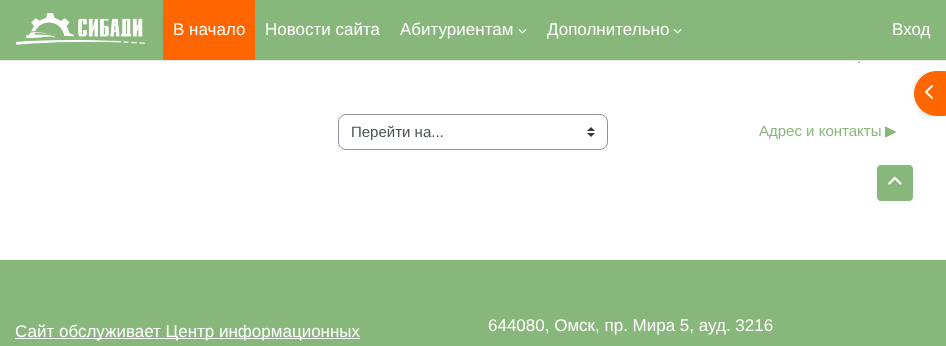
<svg xmlns="http://www.w3.org/2000/svg" xmlns:xlink="http://www.w3.org/1999/xlink" width="946" height="346" viewBox="0 0 946 346">
<style>
.cls-1{font:17px Liberation Sans;fill:#ffffff}
.cls-2{font:15px Liberation Sans;fill:#88b77b}
.cls-3{font:15px Liberation Sans;fill:#495057}
.cls-4{font:15px DejaVu Sans;fill:#88b77b}
</style>
<rect width="100%" height="100%" fill="#ffffff"/>
<rect fill="#88b77b" x="0" y="0" width="946" height="60"/>
<rect fill="#e8e3e3" x="0" y="60" width="946" height="1"/>
<image xlink:href="image0.png" x="16" y="13" width="130" height="32"/>
<rect fill="#ff6600" x="163" y="0" width="92" height="60"/>
<image xlink:href="image1.png" x="518" y="29" width="9" height="5"/>
<image xlink:href="image1.png" x="673" y="29" width="9" height="5"/>
<image xlink:href="image2.png" x="587" y="127" width="8" height="10"/>
<rect fill="none" stroke="#8f959e" x="338.5" y="114.5" width="269" height="35" rx="7.5"/>
<rect fill="#000000" fill-opacity="0.07" filter="blur(2px)" x="914" y="73" width="32" height="45" rx="23"/>
<path fill="#ff6600" stroke="#ff6600" d="M936.5 71.5H945.5V115.5H936.5C924.5 115.5 914.5 105.5 914.5 93.5C914.5 81.5 924.5 71.5 936.5 71.5Z"/>
<image xlink:href="image3.png" x="925" y="85" width="8" height="14"/>
<rect fill="#88b77b" stroke="#ffffff" x="876.5" y="164.5" width="37" height="37" rx="4.5"/>
<image xlink:href="image4.png" x="888" y="176" width="14" height="9"/>
<rect fill="#88b77b" x="0" y="260" width="946" height="86"/>
<rect fill="#ffffff" x="15" y="338" width="345" height="1"/>
<text class="cls-1" x="173" y="35">В начало</text>
<text class="cls-1" x="265" y="35">Новости сайта</text>
<text class="cls-1" x="400" y="35">Абитуриентам</text>
<text class="cls-1" x="547" y="35">Дополнительно</text>
<text class="cls-1" x="892" y="35">Вход</text>
<text class="cls-2" x="857" y="63">.</text>
<text class="cls-3" x="351" y="137">Перейти на...</text>
<text class="cls-2" x="759" y="136">Адрес и контакты</text>
<text class="cls-4" x="885" y="136">▶︎</text>
<text class="cls-1" x="15" y="337">Сайт обслуживает Центр информационных</text>
<text class="cls-1" x="488" y="331">644080, Омск, пр. Мира 5, ауд. 3216</text>
</svg>
